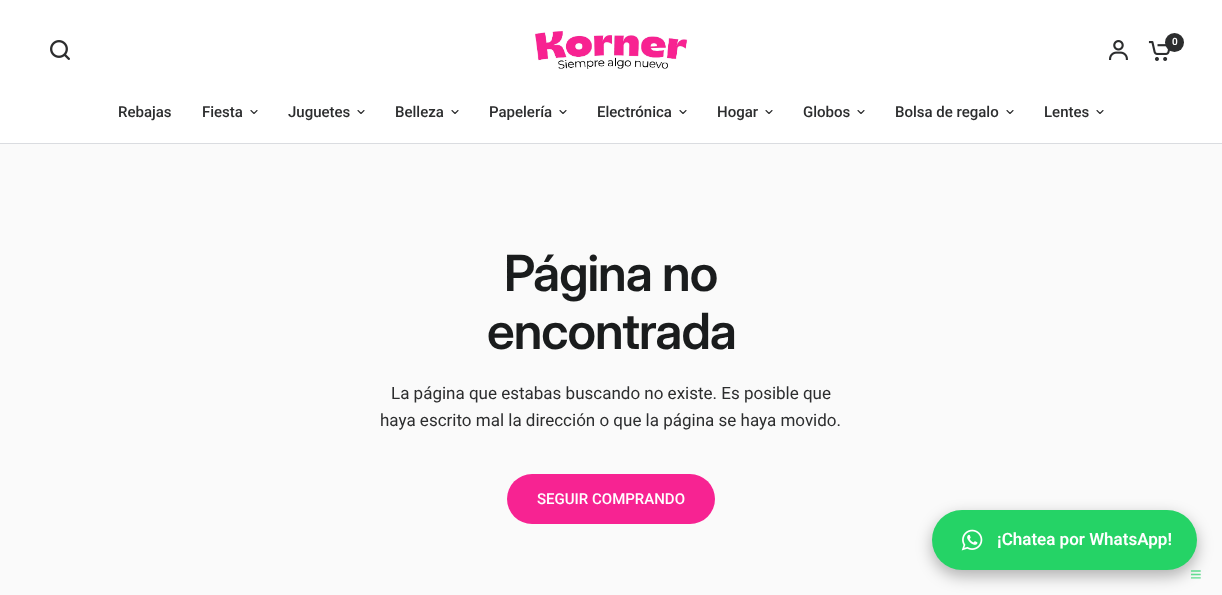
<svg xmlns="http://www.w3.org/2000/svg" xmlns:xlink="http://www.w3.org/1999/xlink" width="1222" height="595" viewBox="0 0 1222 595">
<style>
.cls-1{font:600 10px Roboto;fill:#ffffff}
.cls-2{font:500 15px Roboto;fill:#2c2d2e}
.cls-3{font:600 50px Inter;letter-spacing:-1px;fill:#1a1c1d}
.cls-4{font:17px Roboto;fill:#2c2d2e}
.cls-5{font:500 15px Roboto;fill:#ffffff}
.cls-6{font:600 17px Roboto;fill:#ffffff}
.cls-7{font:bold 20px Liberation Sans;fill:#63dd91}
</style>
<rect width="100%" height="100%" fill="#fafafa"/>
<rect fill="#ffffff" x="0" y="0" width="1222" height="143"/>
<image xlink:href="image0.png" x="50" y="40" width="20" height="20"/>
<image xlink:href="image1.png" x="535" y="31" width="153" height="38"/>
<image xlink:href="image2.png" x="1109" y="40" width="19" height="20"/>
<image xlink:href="image3.png" x="1148" y="41" width="22" height="20"/>
<circle fill="#2c2d2e" cx="1174.5" cy="42.5" r="9.5"/>
<path fill="none" stroke="#2c2d2e" stroke-width="1.1" stroke-linecap="round" stroke-linejoin="round" d="M257 110.5L254 113.5L251 110.5"/>
<path fill="none" stroke="#2c2d2e" stroke-width="1.1" stroke-linecap="round" stroke-linejoin="round" d="M364 110.5L361 113.5L358 110.5"/>
<path fill="none" stroke="#2c2d2e" stroke-width="1.1" stroke-linecap="round" stroke-linejoin="round" d="M458 110.5L455 113.5L452 110.5"/>
<path fill="none" stroke="#2c2d2e" stroke-width="1.1" stroke-linecap="round" stroke-linejoin="round" d="M566 110.5L563 113.5L560 110.5"/>
<path fill="none" stroke="#2c2d2e" stroke-width="1.1" stroke-linecap="round" stroke-linejoin="round" d="M686 110.5L683 113.5L680 110.5"/>
<path fill="none" stroke="#2c2d2e" stroke-width="1.1" stroke-linecap="round" stroke-linejoin="round" d="M772 110.5L769 113.5L766 110.5"/>
<path fill="none" stroke="#2c2d2e" stroke-width="1.1" stroke-linecap="round" stroke-linejoin="round" d="M864 110.5L861 113.5L858 110.5"/>
<path fill="none" stroke="#2c2d2e" stroke-width="1.1" stroke-linecap="round" stroke-linejoin="round" d="M1013 110.5L1010 113.5L1007 110.5"/>
<path fill="none" stroke="#2c2d2e" stroke-width="1.1" stroke-linecap="round" stroke-linejoin="round" d="M1103 110.5L1100 113.5L1097 110.5"/>
<rect fill="#dadce0" x="0" y="143" width="1222" height="1"/>
<rect fill="#f72392" x="507" y="474" width="208" height="50" rx="25"/>
<rect fill="#000000" fill-opacity="0.3" filter="blur(8px)" x="932" y="516" width="265" height="60" rx="30"/>
<rect fill="#25d366" x="932" y="510" width="265" height="60" rx="30"/>
<image xlink:href="image4.png" x="961" y="529" width="22" height="22"/>
<text class="cls-1" x="1172" y="45">0</text>
<text class="cls-2" x="118" y="117">Rebajas</text>
<text class="cls-2" x="202" y="117">Fiesta</text>
<text class="cls-2" x="288" y="117">Juguetes</text>
<text class="cls-2" x="395" y="117">Belleza</text>
<text class="cls-2" x="489" y="117">Papelería</text>
<text class="cls-2" x="597" y="117">Electrónica</text>
<text class="cls-2" x="717" y="117">Hogar</text>
<text class="cls-2" x="803" y="117">Globos</text>
<text class="cls-2" x="895" y="117">Bolsa de regalo</text>
<text class="cls-2" x="1044" y="117">Lentes</text>
<text class="cls-3" x="504" y="291">Página no</text>
<text class="cls-3" x="487" y="349">encontrada</text>
<text class="cls-4" x="391" y="399">La página que estabas buscando no existe. Es posible que</text>
<text class="cls-4" x="380" y="426">haya escrito mal la dirección o que la página se haya movido.</text>
<text class="cls-5" x="537" y="504">SEGUIR COMPRANDO</text>
<text class="cls-6" x="997" y="545">¡Chatea por WhatsApp!</text>
<text class="cls-7" x="1190" y="581">≡</text>
</svg>
